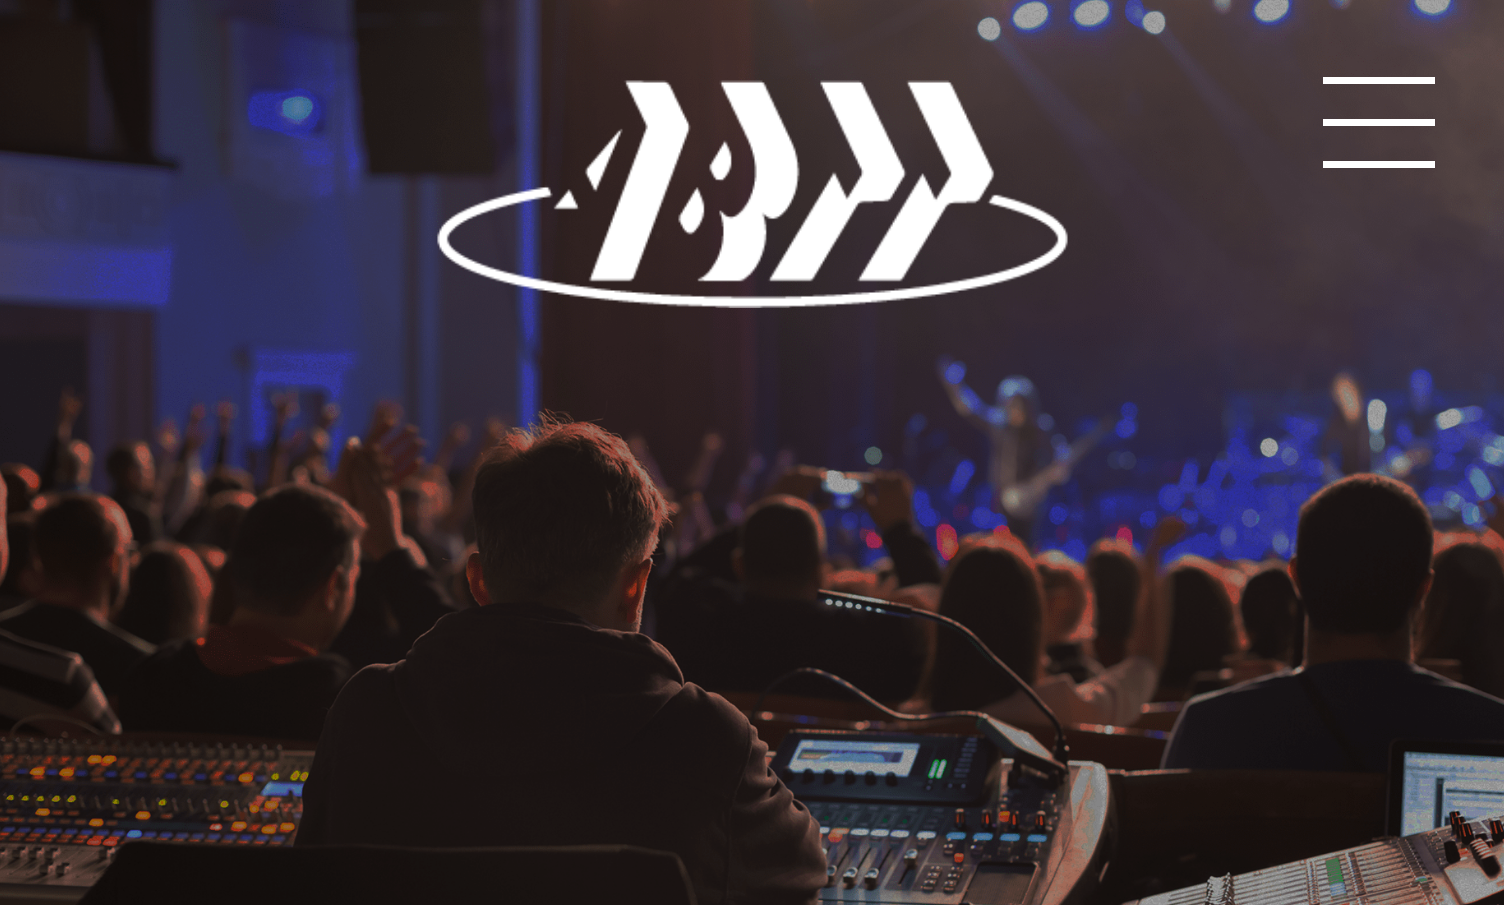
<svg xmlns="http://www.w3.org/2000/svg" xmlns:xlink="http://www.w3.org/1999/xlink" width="1504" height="905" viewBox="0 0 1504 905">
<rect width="100%" height="100%" fill="#ffffff"/>
<image xlink:href="image0.png" x="0" y="0" width="1504" height="905"/>
<image xlink:href="image1.png" x="437" y="80" width="631" height="228"/>
<rect fill="#ffffff" x="1323" y="77" width="112" height="7"/>
<rect fill="#ffffff" x="1323" y="119" width="112" height="7"/>
<rect fill="#ffffff" x="1323" y="161" width="112" height="7"/>
</svg>
